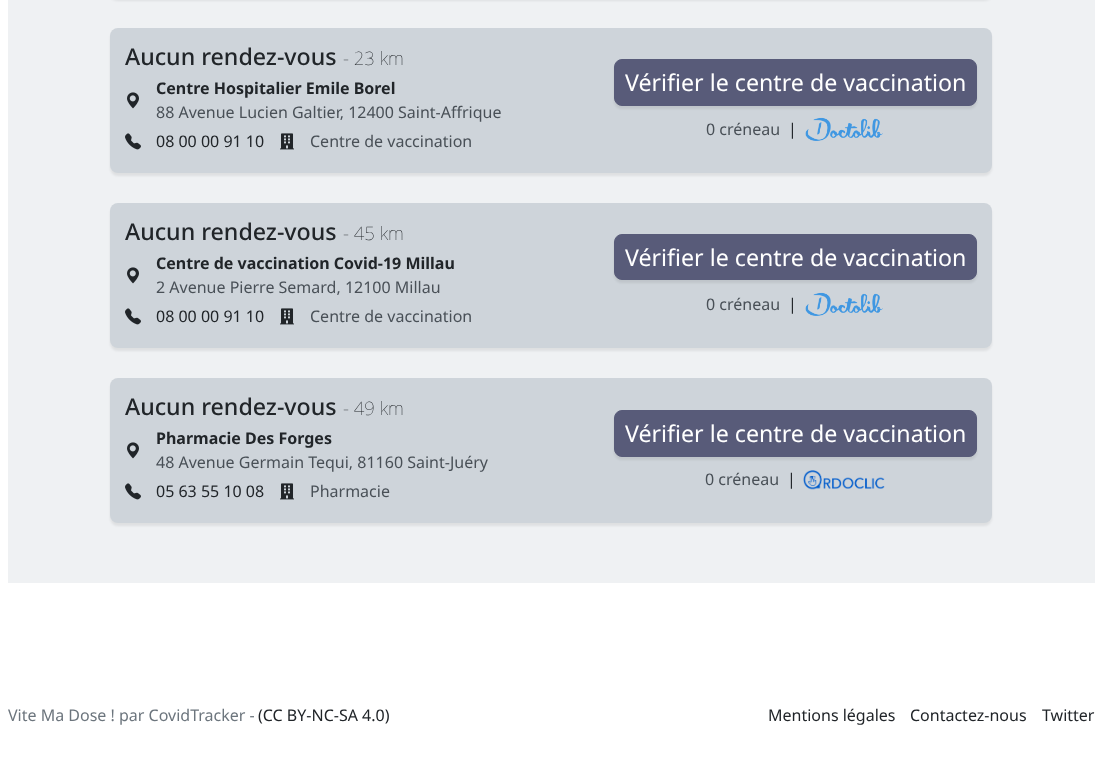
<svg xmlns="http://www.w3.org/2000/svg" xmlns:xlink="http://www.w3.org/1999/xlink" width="1102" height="759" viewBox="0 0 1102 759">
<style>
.cls-1{font:500 23.2px Noto Sans;fill:#212529}
.cls-2{font:100 18.5px Noto Sans;fill:#212529}
.cls-3{font:bold 16px Noto Sans;fill:#212529}
.cls-4{font:16px Noto Sans;fill:#495057}
.cls-5{font:16px Noto Sans;fill:#212529}
.cls-6{font:23.2px Noto Sans;fill:#ffffff}
.cls-7{font:16px Noto Sans;fill:#6c757d}
</style>
<rect width="100%" height="100%" fill="#ffffff"/>
<rect fill="#eff1f3" x="8" y="0" width="1087" height="583"/>
<rect fill="#000000" fill-opacity="0.07" filter="blur(1px)" x="110" y="-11" width="882" height="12" rx="8"/>
<rect fill="#000000" fill-opacity="0.07" filter="blur(1px)" x="110" y="31" width="882" height="145" rx="8"/>
<rect fill="#ced4da" x="110" y="28" width="882" height="145" rx="8"/>
<image xlink:href="image0.png" x="127" y="92" width="12" height="17"/>
<image xlink:href="image1.png" x="125" y="133" width="16" height="17"/>
<image xlink:href="image2.png" x="280" y="133" width="14" height="17"/>
<rect fill="#000000" fill-opacity="0.07" filter="blur(1px)" x="614" y="62" width="363" height="47" rx="8"/>
<rect fill="#585b79" stroke="#585b79" x="614.5" y="59.5" width="362" height="46" rx="7.5"/>
<image xlink:href="image3.png" x="805" y="117" width="78" height="24"/>
<rect fill="#000000" fill-opacity="0.07" filter="blur(1px)" x="110" y="206" width="882" height="145" rx="8"/>
<rect fill="#ced4da" x="110" y="203" width="882" height="145" rx="8"/>
<image xlink:href="image0.png" x="127" y="267" width="12" height="17"/>
<image xlink:href="image1.png" x="125" y="308" width="16" height="17"/>
<image xlink:href="image2.png" x="280" y="308" width="14" height="17"/>
<rect fill="#000000" fill-opacity="0.07" filter="blur(1px)" x="614" y="237" width="363" height="46" rx="8"/>
<rect fill="#585b79" stroke="#585b79" x="614.5" y="234.5" width="362" height="45" rx="7.5"/>
<image xlink:href="image3.png" x="805" y="292" width="78" height="24"/>
<rect fill="#000000" fill-opacity="0.07" filter="blur(1px)" x="110" y="381" width="882" height="145" rx="8"/>
<rect fill="#ced4da" x="110" y="378" width="882" height="145" rx="8"/>
<image xlink:href="image0.png" x="127" y="442" width="12" height="17"/>
<image xlink:href="image1.png" x="125" y="483" width="16" height="17"/>
<image xlink:href="image2.png" x="280" y="483" width="14" height="17"/>
<rect fill="#000000" fill-opacity="0.07" filter="blur(1px)" x="614" y="413" width="363" height="47" rx="8"/>
<rect fill="#585b79" stroke="#585b79" x="614.5" y="410.5" width="362" height="46" rx="7.5"/>
<image xlink:href="image4.png" x="803" y="470" width="82" height="20"/>
<text class="cls-1" x="125" y="65">Aucun rendez-vous</text>
<text class="cls-2" x="343" y="65">- 23 km</text>
<text class="cls-3" x="156" y="94">Centre Hospitalier Emile Borel</text>
<text class="cls-4" x="156" y="118">88 Avenue Lucien Galtier, 12400 Saint-Affrique</text>
<text class="cls-5" x="156" y="147">08 00 00 91 10</text>
<text class="cls-4" x="310" y="147">Centre de vaccination</text>
<text class="cls-6" x="625" y="91">Vérifier le centre de vaccination</text>
<text class="cls-4" x="706" y="135">0 créneau</text>
<text class="cls-5" x="788" y="135">|</text>
<text class="cls-1" x="125" y="240">Aucun rendez-vous</text>
<text class="cls-2" x="343" y="240">- 45 km</text>
<text class="cls-3" x="156" y="269">Centre de vaccination Covid-19 Millau</text>
<text class="cls-4" x="156" y="293">2 Avenue Pierre Semard, 12100 Millau</text>
<text class="cls-5" x="156" y="322">08 00 00 91 10</text>
<text class="cls-4" x="310" y="322">Centre de vaccination</text>
<text class="cls-6" x="625" y="266">Vérifier le centre de vaccination</text>
<text class="cls-4" x="706" y="310">0 créneau</text>
<text class="cls-5" x="788" y="310">|</text>
<text class="cls-1" x="125" y="415">Aucun rendez-vous</text>
<text class="cls-2" x="343" y="415">- 49 km</text>
<text class="cls-3" x="156" y="444">Pharmacie Des Forges</text>
<text class="cls-4" x="156" y="468">48 Avenue Germain Tequi, 81160 Saint-Juéry</text>
<text class="cls-5" x="156" y="497">05 63 55 10 08</text>
<text class="cls-4" x="310" y="497">Pharmacie</text>
<text class="cls-6" x="625" y="442">Vérifier le centre de vaccination</text>
<text class="cls-4" x="705" y="485">0 créneau</text>
<text class="cls-5" x="787" y="485">|</text>
<text class="cls-7" x="8" y="721">Vite Ma Dose ! par CovidTracker -</text>
<text class="cls-5" x="258" y="721">(CC BY-NC-SA 4.0)</text>
<text class="cls-5" x="768" y="721">Mentions légales</text>
<text class="cls-5" x="910" y="721">Contactez-nous</text>
<text class="cls-5" x="1042" y="721">Twitter</text>
</svg>
